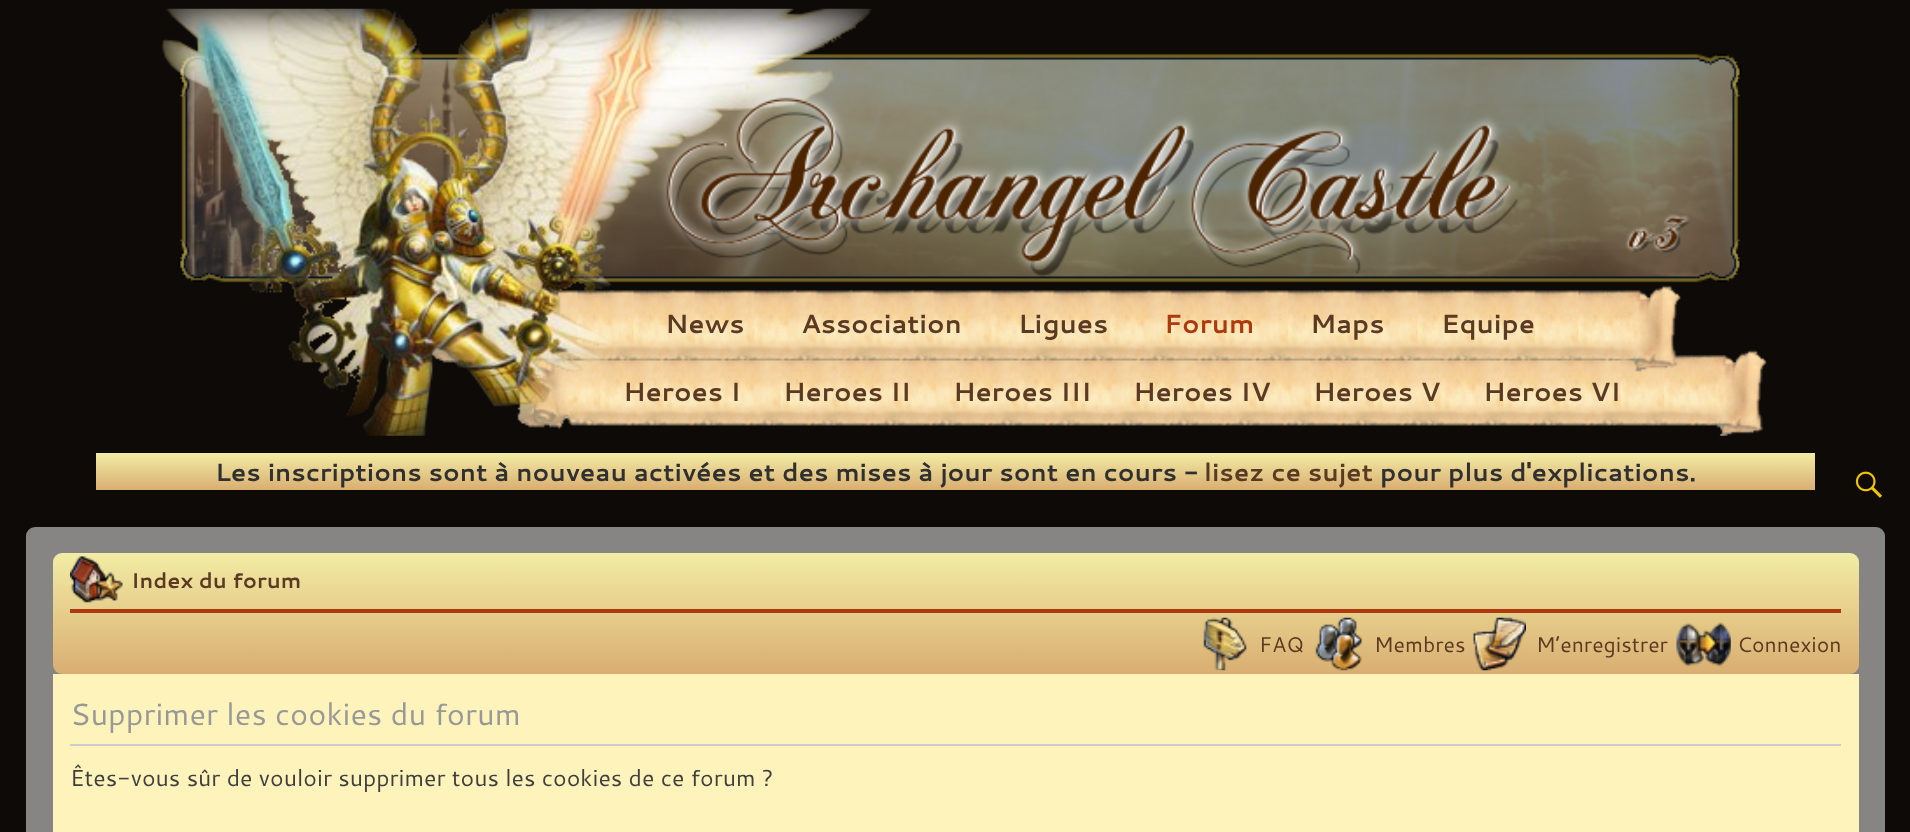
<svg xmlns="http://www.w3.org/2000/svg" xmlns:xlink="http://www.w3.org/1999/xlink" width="1910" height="832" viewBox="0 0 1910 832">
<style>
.cls-1{font:bold 26.25px Cantarell;fill:#5a3a22}
.cls-2{font:bold 26.25px Cantarell;fill:#ad390e}
.cls-3{font:bold 25.05px Cantarell;fill:#303030}
.cls-4{font:bold 25.05px Cantarell;fill:#5a3a22}
.cls-5{font:bold 21.25px Cantarell;fill:#5a3a22}
.cls-6{font:21.25px Cantarell;fill:#5a3a22}
.cls-7{font:30.75px Cantarell;fill:#989898}
.cls-8{font:23.1px Cantarell;fill:#3f3f3f}
</style>
<defs>
<linearGradient id="g1" gradientUnits="userSpaceOnUse" x1="956" y1="453" x2="956" y2="490"><stop offset="0" stop-color="#f2eca4"/><stop offset="1" stop-color="#d9ae71"/></linearGradient>
<linearGradient id="g2" gradientUnits="userSpaceOnUse" x1="956" y1="553" x2="956" y2="674"><stop offset="0" stop-color="#f2eca4"/><stop offset="1" stop-color="#d9ae71"/></linearGradient>
</defs>
<rect width="100%" height="100%" fill="#0d0a07"/>
<image xlink:href="image0.png" x="161" y="8" width="1606" height="428"/>
<image xlink:href="image1.png" x="1855" y="471" width="27" height="27"/>
<rect fill="url(#g1)" x="96" y="453" width="1719" height="37"/>
<rect fill="#868583" x="26" y="527" width="1859" height="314" rx="9"/>
<rect fill="url(#g2)" x="53" y="553" width="1806" height="121" rx="9"/>
<rect fill="#ad390e" x="70" y="609" width="1771" height="4"/>
<image xlink:href="image2.png" x="70" y="556" width="53" height="47"/>
<image xlink:href="image3.png" x="1203" y="617" width="44" height="54"/>
<image xlink:href="image4.png" x="1315" y="617" width="47" height="54"/>
<image xlink:href="image5.png" x="1473" y="617" width="53" height="54"/>
<image xlink:href="image6.png" x="1676" y="622" width="55" height="45"/>
<rect fill="#fff3bc" x="53" y="674" width="1806" height="158"/>
<rect fill="#cccccc" x="70" y="744" width="1771" height="2"/>
<text class="cls-1" x="665" y="333">News</text>
<text class="cls-1" x="801" y="333">Association</text>
<text class="cls-1" x="1018" y="333">Ligues</text>
<text class="cls-2" x="1164" y="333">Forum</text>
<text class="cls-1" x="1310" y="333">Maps</text>
<text class="cls-1" x="1441" y="333">Equipe</text>
<text class="cls-1" x="623" y="401">Heroes I</text>
<text class="cls-1" x="783" y="401">Heroes II</text>
<text class="cls-1" x="953" y="401">Heroes III</text>
<text class="cls-1" x="1133" y="401">Heroes IV</text>
<text class="cls-1" x="1313" y="401">Heroes V</text>
<text class="cls-1" x="1483" y="401">Heroes VI</text>
<text class="cls-3" x="215" y="481">Les inscriptions sont à nouveau activées et des mises à jour sont en cours -</text>
<text class="cls-4" x="1204" y="481">lisez ce sujet</text>
<text class="cls-3" x="1380" y="481">pour plus d'explications.</text>
<text class="cls-5" x="131" y="588">Index du forum</text>
<text class="cls-6" x="1259" y="652">FAQ</text>
<text class="cls-6" x="1374" y="652">Membres</text>
<text class="cls-6" x="1536" y="652">M’enregistrer</text>
<text class="cls-6" x="1737" y="652">Connexion</text>
<text class="cls-7" x="70" y="725">Supprimer les cookies du forum</text>
<text class="cls-8" x="70" y="786">Êtes-vous sûr de vouloir supprimer tous les cookies de ce forum ?</text>
</svg>
